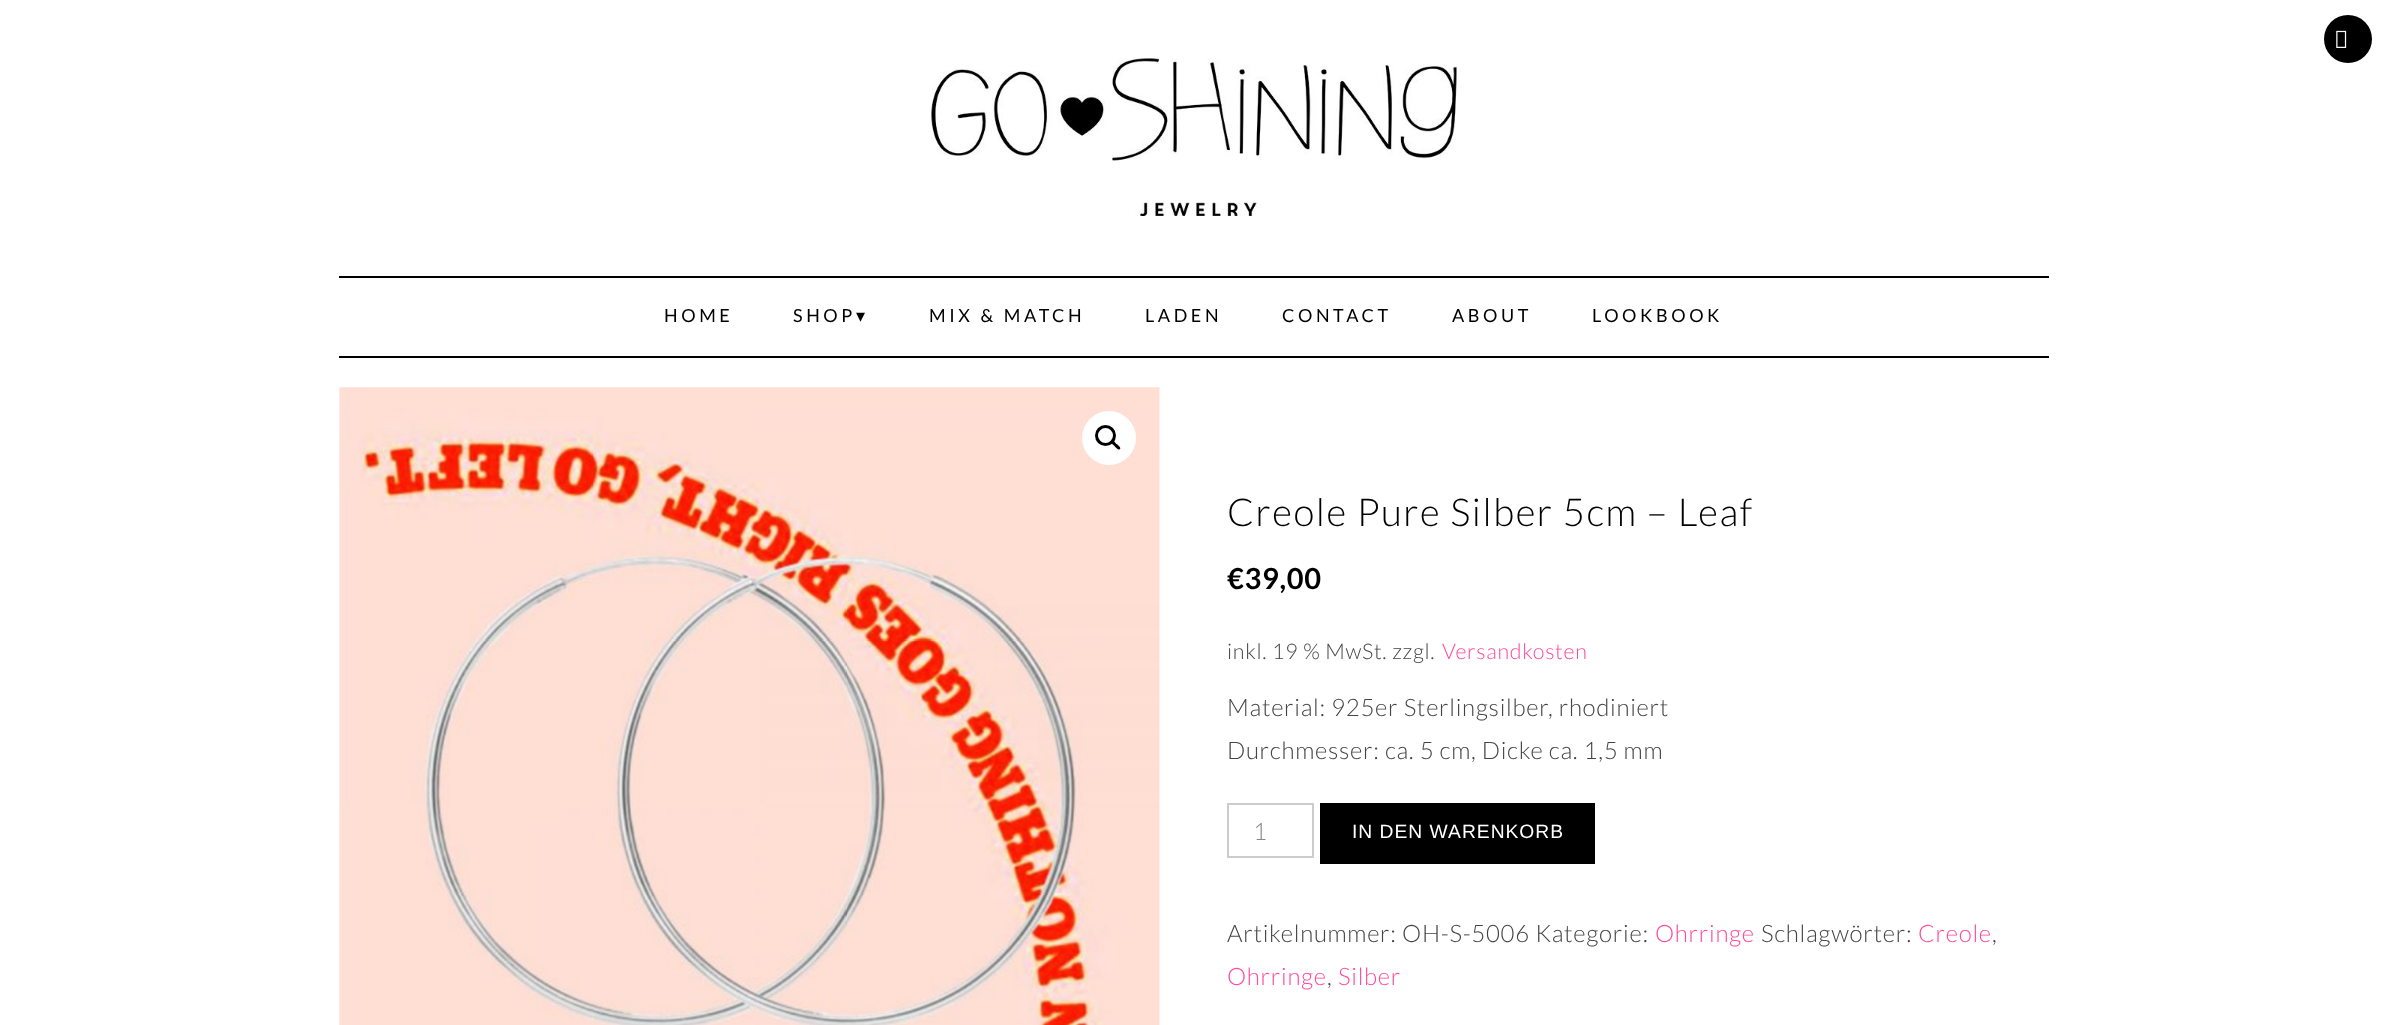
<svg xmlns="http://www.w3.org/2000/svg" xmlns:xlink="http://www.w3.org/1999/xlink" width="2386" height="1025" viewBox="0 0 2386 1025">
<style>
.cls-1{font:18px Lato;letter-spacing:3.6px;fill:#000000}
.cls-2{font:18px DejaVu Sans;letter-spacing:3.6px;fill:#000000}
.cls-3{font:300 38.4px Lato;letter-spacing:1.55px;fill:#000000}
.cls-4{font:bold 29px Lato;letter-spacing:0.7px;fill:#000000}
.cls-5{font:300 21.5px Lato;letter-spacing:0.7px;fill:#444444}
.cls-6{font:300 21.5px Lato;letter-spacing:0.7px;fill:#ff4a9b}
.cls-7{font:300 24px Lato;letter-spacing:0.7px;fill:#444444}
.cls-8{font:300 24px Lato;fill:#888888}
.cls-9{font:19.25px Liberation Sans;letter-spacing:1px;fill:#ffffff}
.cls-10{font:300 24px Lato;letter-spacing:0.7px;fill:#ff4a9b}
</style>
<rect width="100%" height="100%" fill="#ffffff"/>
<circle fill="#000000" cx="2348" cy="39" r="24"/>
<image xlink:href="image0.png" x="2336" y="30" width="11" height="18"/>
<image xlink:href="image1.png" x="931" y="58" width="526" height="158"/>
<rect fill="#000000" x="339" y="276" width="1710" height="2"/>
<rect fill="#000000" x="339" y="356" width="1710" height="2"/>
<image xlink:href="image2.png" x="339" y="387" width="821" height="638"/>
<image xlink:href="image3.png" x="1159" y="387" width="1" height="638"/>
<circle fill="#ffffff" cx="1109" cy="438" r="27"/>
<circle fill="none" stroke="#000000" stroke-width="3" cx="1105.5" cy="435.5" r="9"/>
<path fill="#000000" d="M1111.5 440.5C1113 439 1115.5 443 1116.5 444C1117.5 444.5 1121.5 447.5 1120 449C1118 451 1115.5 447 1114.5 446C1113.5 445 1109.5 442.5 1111.5 440.5Z"/>
<rect fill="none" stroke="#cccccc" stroke-width="2" x="1228" y="804" width="85" height="53"/>
<rect fill="#000000" x="1320" y="803" width="275" height="61"/>
<text class="cls-1" x="664" y="322">HOME</text>
<text class="cls-1" x="793" y="322">SHOP</text>
<text class="cls-2" x="856" y="322">▾</text>
<text class="cls-1" x="929" y="322">MIX &amp; MATCH</text>
<text class="cls-1" x="1145" y="322">LADEN</text>
<text class="cls-1" x="1282" y="322">CONTACT</text>
<text class="cls-1" x="1452" y="322">ABOUT</text>
<text class="cls-1" x="1592" y="322">LOOKBOOK</text>
<text class="cls-3" x="1227" y="526">Creole Pure Silber 5cm – Leaf</text>
<text class="cls-4" x="1227" y="589">€39,00</text>
<text class="cls-5" x="1227" y="659">inkl. 19 % MwSt. zzgl.</text>
<text class="cls-6" x="1442" y="659">Versandkosten</text>
<text class="cls-7"><tspan x="1227" y="716">Material: 925er Sterlingsilber, rhodiniert</tspan><tspan x="1227" y="759">Durchmesser: ca. 5 cm, Dicke ca. 1,5 mm</tspan></text>
<text class="cls-8" x="1253" y="840">1</text>
<text class="cls-9" x="1352" y="838">IN DEN WARENKORB</text>
<text class="cls-7" x="1227" y="942">Artikelnummer: OH-S-5006 Kategorie:</text>
<text class="cls-10" x="1655" y="942">Ohrringe</text>
<text class="cls-7" x="1761" y="942">Schlagwörter:</text>
<text class="cls-10" x="1918" y="942">Creole</text>
<text class="cls-7" x="1992" y="942">,</text>
<text class="cls-10" x="1227" y="985">Ohrringe</text>
<text class="cls-7" x="1327" y="985">,</text>
<text class="cls-10" x="1338" y="985">Silber</text>
</svg>
